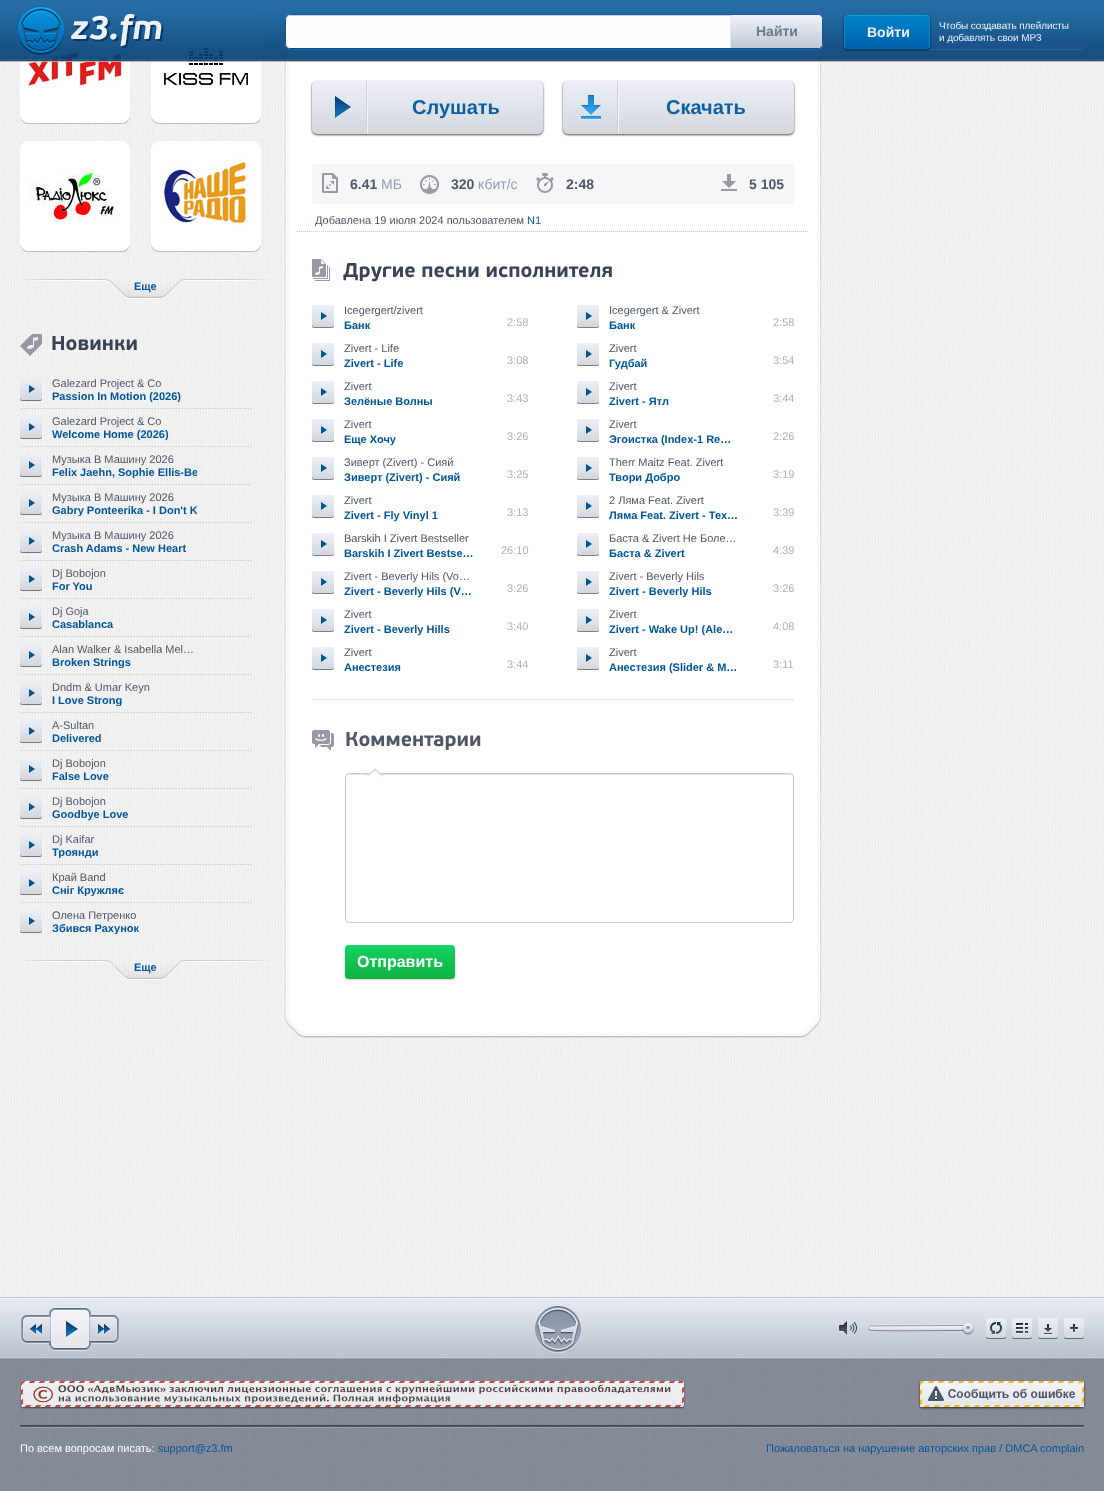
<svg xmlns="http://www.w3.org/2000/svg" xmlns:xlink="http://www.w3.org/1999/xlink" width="1104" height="1491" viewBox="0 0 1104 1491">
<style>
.cls-1{font:bold 14px Liberation Sans;fill:#6e788b}
.cls-2{font:bold 14px Liberation Sans;fill:#ebf4f9}
.cls-3{font:10px Liberation Sans;letter-spacing:-0.1px;fill:#ebf4f9}
.cls-4{font:bold 11px Liberation Sans;fill:#00559a}
.cls-5{font:bold 20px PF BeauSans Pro;fill:#394256}
.cls-6{font:11px Liberation Sans;fill:#4e5768}
.cls-7{font:bold 20px Liberation Sans;fill:#0d5fa1}
.cls-8{font:bold 14px Liberation Sans;fill:#4e5768}
.cls-9{font:14px Liberation Sans;fill:#959eb1}
.cls-10{font:11px Liberation Sans;fill:#00559a}
.cls-11{font:11px Liberation Sans;fill:#adb1ba}
.cls-12{font:bold 20px PF BeauSans Pro;fill:#4e5768}
.cls-13{font:bold 16px Liberation Sans;fill:#ffffff}
.cls-14{font:11px Liberation Sans;fill:#ffffff}
</style>
<defs>
<linearGradient id="g1" gradientUnits="userSpaceOnUse" x1="777" y1="15" x2="777" y2="48"><stop offset="0" stop-color="#f3f6fb" stop-opacity="0.92"/><stop offset="1" stop-color="#c0c8d6" stop-opacity="0.92"/></linearGradient>
<clipPath id="clip1"><path d="M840 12H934V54H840ZM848 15H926C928 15 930 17 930 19V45C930 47 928 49 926 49H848C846 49 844 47 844 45V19C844 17 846 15 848 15Z" clip-rule="evenodd"/></clipPath>
<clipPath id="clip2"><rect x="844" y="15" width="86" height="34" rx="4"/></clipPath>
<linearGradient id="g2" gradientUnits="userSpaceOnUse" x1="887" y1="16" x2="887" y2="48"><stop offset="0" stop-color="#0086cc" stop-opacity="0.92"/><stop offset="1" stop-color="#005eaa" stop-opacity="0.92"/></linearGradient>
<linearGradient id="g3" gradientUnits="userSpaceOnUse" x1="31" y1="378" x2="31" y2="400"><stop offset="0" stop-color="#ecf0f6"/><stop offset="1" stop-color="#d3d8df"/></linearGradient>
<linearGradient id="g4" gradientUnits="userSpaceOnUse" x1="31" y1="416" x2="31" y2="438"><stop offset="0" stop-color="#ecf0f6"/><stop offset="1" stop-color="#d3d8df"/></linearGradient>
<linearGradient id="g5" gradientUnits="userSpaceOnUse" x1="31" y1="454" x2="31" y2="476"><stop offset="0" stop-color="#ecf0f6"/><stop offset="1" stop-color="#d3d8df"/></linearGradient>
<linearGradient id="g6" gradientUnits="userSpaceOnUse" x1="31" y1="492" x2="31" y2="514"><stop offset="0" stop-color="#ecf0f6"/><stop offset="1" stop-color="#d3d8df"/></linearGradient>
<linearGradient id="g7" gradientUnits="userSpaceOnUse" x1="31" y1="530" x2="31" y2="552"><stop offset="0" stop-color="#ecf0f6"/><stop offset="1" stop-color="#d3d8df"/></linearGradient>
<linearGradient id="g8" gradientUnits="userSpaceOnUse" x1="31" y1="568" x2="31" y2="590"><stop offset="0" stop-color="#ecf0f6"/><stop offset="1" stop-color="#d3d8df"/></linearGradient>
<linearGradient id="g9" gradientUnits="userSpaceOnUse" x1="31" y1="606" x2="31" y2="628"><stop offset="0" stop-color="#ecf0f6"/><stop offset="1" stop-color="#d3d8df"/></linearGradient>
<linearGradient id="g10" gradientUnits="userSpaceOnUse" x1="31" y1="644" x2="31" y2="666"><stop offset="0" stop-color="#ecf0f6"/><stop offset="1" stop-color="#d3d8df"/></linearGradient>
<linearGradient id="g11" gradientUnits="userSpaceOnUse" x1="31" y1="682" x2="31" y2="704"><stop offset="0" stop-color="#ecf0f6"/><stop offset="1" stop-color="#d3d8df"/></linearGradient>
<linearGradient id="g12" gradientUnits="userSpaceOnUse" x1="31" y1="720" x2="31" y2="742"><stop offset="0" stop-color="#ecf0f6"/><stop offset="1" stop-color="#d3d8df"/></linearGradient>
<linearGradient id="g13" gradientUnits="userSpaceOnUse" x1="31" y1="758" x2="31" y2="780"><stop offset="0" stop-color="#ecf0f6"/><stop offset="1" stop-color="#d3d8df"/></linearGradient>
<linearGradient id="g14" gradientUnits="userSpaceOnUse" x1="31" y1="796" x2="31" y2="818"><stop offset="0" stop-color="#ecf0f6"/><stop offset="1" stop-color="#d3d8df"/></linearGradient>
<linearGradient id="g15" gradientUnits="userSpaceOnUse" x1="31" y1="834" x2="31" y2="856"><stop offset="0" stop-color="#ecf0f6"/><stop offset="1" stop-color="#d3d8df"/></linearGradient>
<linearGradient id="g16" gradientUnits="userSpaceOnUse" x1="31" y1="872" x2="31" y2="894"><stop offset="0" stop-color="#ecf0f6"/><stop offset="1" stop-color="#d3d8df"/></linearGradient>
<linearGradient id="g17" gradientUnits="userSpaceOnUse" x1="31" y1="910" x2="31" y2="932"><stop offset="0" stop-color="#ecf0f6"/><stop offset="1" stop-color="#d3d8df"/></linearGradient>
<linearGradient id="g18" gradientUnits="userSpaceOnUse" x1="428" y1="81" x2="428" y2="134"><stop offset="0" stop-color="#ecf0f6"/><stop offset="1" stop-color="#d3d8de"/></linearGradient>
<linearGradient id="g19" gradientUnits="userSpaceOnUse" x1="679" y1="81" x2="679" y2="134"><stop offset="0" stop-color="#ecf0f6"/><stop offset="1" stop-color="#d3d8de"/></linearGradient>
<linearGradient id="g20" gradientUnits="userSpaceOnUse" x1="323" y1="305" x2="323" y2="327"><stop offset="0" stop-color="#ecf0f6"/><stop offset="1" stop-color="#d3d8df"/></linearGradient>
<linearGradient id="g21" gradientUnits="userSpaceOnUse" x1="323" y1="343" x2="323" y2="365"><stop offset="0" stop-color="#ecf0f6"/><stop offset="1" stop-color="#d3d8df"/></linearGradient>
<linearGradient id="g22" gradientUnits="userSpaceOnUse" x1="323" y1="381" x2="323" y2="403"><stop offset="0" stop-color="#ecf0f6"/><stop offset="1" stop-color="#d3d8df"/></linearGradient>
<linearGradient id="g23" gradientUnits="userSpaceOnUse" x1="323" y1="419" x2="323" y2="441"><stop offset="0" stop-color="#ecf0f6"/><stop offset="1" stop-color="#d3d8df"/></linearGradient>
<linearGradient id="g24" gradientUnits="userSpaceOnUse" x1="323" y1="457" x2="323" y2="479"><stop offset="0" stop-color="#ecf0f6"/><stop offset="1" stop-color="#d3d8df"/></linearGradient>
<linearGradient id="g25" gradientUnits="userSpaceOnUse" x1="323" y1="495" x2="323" y2="517"><stop offset="0" stop-color="#ecf0f6"/><stop offset="1" stop-color="#d3d8df"/></linearGradient>
<linearGradient id="g26" gradientUnits="userSpaceOnUse" x1="323" y1="533" x2="323" y2="555"><stop offset="0" stop-color="#ecf0f6"/><stop offset="1" stop-color="#d3d8df"/></linearGradient>
<linearGradient id="g27" gradientUnits="userSpaceOnUse" x1="323" y1="571" x2="323" y2="593"><stop offset="0" stop-color="#ecf0f6"/><stop offset="1" stop-color="#d3d8df"/></linearGradient>
<linearGradient id="g28" gradientUnits="userSpaceOnUse" x1="323" y1="609" x2="323" y2="631"><stop offset="0" stop-color="#ecf0f6"/><stop offset="1" stop-color="#d3d8df"/></linearGradient>
<linearGradient id="g29" gradientUnits="userSpaceOnUse" x1="323" y1="647" x2="323" y2="669"><stop offset="0" stop-color="#ecf0f6"/><stop offset="1" stop-color="#d3d8df"/></linearGradient>
<linearGradient id="g30" gradientUnits="userSpaceOnUse" x1="588" y1="305" x2="588" y2="327"><stop offset="0" stop-color="#ecf0f6"/><stop offset="1" stop-color="#d3d8df"/></linearGradient>
<linearGradient id="g31" gradientUnits="userSpaceOnUse" x1="588" y1="343" x2="588" y2="365"><stop offset="0" stop-color="#ecf0f6"/><stop offset="1" stop-color="#d3d8df"/></linearGradient>
<linearGradient id="g32" gradientUnits="userSpaceOnUse" x1="588" y1="381" x2="588" y2="403"><stop offset="0" stop-color="#ecf0f6"/><stop offset="1" stop-color="#d3d8df"/></linearGradient>
<linearGradient id="g33" gradientUnits="userSpaceOnUse" x1="588" y1="419" x2="588" y2="441"><stop offset="0" stop-color="#ecf0f6"/><stop offset="1" stop-color="#d3d8df"/></linearGradient>
<linearGradient id="g34" gradientUnits="userSpaceOnUse" x1="588" y1="457" x2="588" y2="479"><stop offset="0" stop-color="#ecf0f6"/><stop offset="1" stop-color="#d3d8df"/></linearGradient>
<linearGradient id="g35" gradientUnits="userSpaceOnUse" x1="588" y1="495" x2="588" y2="517"><stop offset="0" stop-color="#ecf0f6"/><stop offset="1" stop-color="#d3d8df"/></linearGradient>
<linearGradient id="g36" gradientUnits="userSpaceOnUse" x1="588" y1="533" x2="588" y2="555"><stop offset="0" stop-color="#ecf0f6"/><stop offset="1" stop-color="#d3d8df"/></linearGradient>
<linearGradient id="g37" gradientUnits="userSpaceOnUse" x1="588" y1="571" x2="588" y2="593"><stop offset="0" stop-color="#ecf0f6"/><stop offset="1" stop-color="#d3d8df"/></linearGradient>
<linearGradient id="g38" gradientUnits="userSpaceOnUse" x1="588" y1="609" x2="588" y2="631"><stop offset="0" stop-color="#ecf0f6"/><stop offset="1" stop-color="#d3d8df"/></linearGradient>
<linearGradient id="g39" gradientUnits="userSpaceOnUse" x1="588" y1="647" x2="588" y2="669"><stop offset="0" stop-color="#ecf0f6"/><stop offset="1" stop-color="#d3d8df"/></linearGradient>
<linearGradient id="g40" gradientUnits="userSpaceOnUse" x1="400" y1="945" x2="400" y2="979"><stop offset="0" stop-color="#13d360"/><stop offset="1" stop-color="#12b143"/></linearGradient>
<clipPath id="clip3"><rect x="868" y="1325" width="102" height="6" rx="3"/></clipPath>
<linearGradient id="g41" gradientUnits="userSpaceOnUse" x1="919" y1="1326" x2="919" y2="1330"><stop offset="0" stop-color="#fcfcfe"/><stop offset="1" stop-color="#d4dae4"/></linearGradient>
<linearGradient id="g42" gradientUnits="userSpaceOnUse" x1="996" y1="1318" x2="996" y2="1338"><stop offset="0" stop-color="#ecf0f6"/><stop offset="1" stop-color="#d3d8df"/></linearGradient>
<linearGradient id="g43" gradientUnits="userSpaceOnUse" x1="1022" y1="1318" x2="1022" y2="1338"><stop offset="0" stop-color="#ecf0f6"/><stop offset="1" stop-color="#d3d8df"/></linearGradient>
<linearGradient id="g44" gradientUnits="userSpaceOnUse" x1="1048" y1="1318" x2="1048" y2="1338"><stop offset="0" stop-color="#ecf0f6"/><stop offset="1" stop-color="#d3d8df"/></linearGradient>
<linearGradient id="g45" gradientUnits="userSpaceOnUse" x1="1074" y1="1318" x2="1074" y2="1338"><stop offset="0" stop-color="#ecf0f6"/><stop offset="1" stop-color="#d3d8df"/></linearGradient>
<clipPath id="clip4"><rect x="52" y="390" width="145" height="12"/></clipPath>
<clipPath id="clip5"><rect x="52" y="428" width="145" height="12"/></clipPath>
<clipPath id="clip6"><rect x="52" y="466" width="145" height="12"/></clipPath>
<clipPath id="clip7"><rect x="52" y="504" width="145" height="12"/></clipPath>
<clipPath id="clip8"><rect x="52" y="656" width="145" height="12"/></clipPath>
<clipPath id="clip9"><rect x="52" y="694" width="145" height="12"/></clipPath>
<clipPath id="clip10"><rect x="52" y="846" width="145" height="12"/></clipPath>
<clipPath id="clip11"><rect x="52" y="884" width="145" height="12"/></clipPath>
<clipPath id="clip12"><rect x="52" y="922" width="145" height="12"/></clipPath>
</defs>
<rect width="100%" height="100%" fill="#ffffff"/>
<image xlink:href="image0.png" x="0" y="0" width="1104" height="1359"/>
<rect fill="#000000" fill-opacity="0.22" filter="blur(0.5px)" x="20" y="14" width="110" height="110" rx="8"/>
<rect fill="#ffffff" stroke="#ffffff" x="20.5" y="13.5" width="109" height="109" rx="7.5"/>
<image xlink:href="image3.png" x="28" y="49" width="96" height="40"/>
<rect fill="#000000" fill-opacity="0.22" filter="blur(0.5px)" x="151" y="14" width="110" height="110" rx="8"/>
<rect fill="#ffffff" stroke="#ffffff" x="151.5" y="13.5" width="109" height="109" rx="7.5"/>
<image xlink:href="image4.png" x="161" y="48" width="87" height="38"/>
<image xlink:href="image19.png" x="285" y="0" width="26" height="1011"/>
<image xlink:href="image20.png" x="795" y="0" width="26" height="1011"/>
<rect fill="#ffffff" x="311" y="0" width="484" height="1011"/>
<image xlink:href="image1.png" x="0" y="0" width="1104" height="62"/>
<image xlink:href="image2.png" x="18" y="7" width="146" height="48"/>
<path fill="#0c6ebe" fill-opacity="0.83" d="M285 43V44C285 47 288 50 291 50H817C820 50 823 47 823 44V43C823 46 820 49 817 49H291C288 49 285 46 285 43Z"/>
<rect fill="#ffffff" fill-opacity="0.92" x="285" y="14" width="538" height="35" rx="6"/>
<path fill="none" stroke="#0d4b84" stroke-opacity="0.92" d="M287 16C288 15 289.5 14.5 291 14.5H817C818.5 14.5 820 15 821 16"/>
<path fill="none" stroke="#09447b" stroke-opacity="0.92" d="M821 16C822 17 822.5 18.5 822.5 20V43C822.5 44.5 822 46 821 47"/>
<path fill="none" stroke="#03376a" stroke-opacity="0.92" d="M821 47C820 48 818.5 48.5 817 48.5H291C289.5 48.5 288 48 287 47"/>
<path fill="none" stroke="#09447b" stroke-opacity="0.92" d="M287 47C286 46 285.5 44.5 285.5 43V20C285.5 18.5 286 17 287 16"/>
<path fill="#ffffff" fill-opacity="0.92" d="M290 15H731V48H290C288 48 286 46 286 44V19C286 17 288 15 290 15Z"/>
<path fill="#163a7c" fill-opacity="0.24" d="M290 16H731V15H290C288 15 286 17 286 19V20C286 18 288 16 290 16Z"/>
<rect fill="#141414" fill-opacity="0.1" x="730" y="15" width="1" height="33"/>
<path fill="#c0c8d6" fill-opacity="0.92" d="M731 15H818C820 15 822 17 822 19V44C822 46 820 48 818 48H731Z"/>
<path fill="url(#g1)" d="M731 15H818C820 15 822 17 822 19V44C822 46 820 48 818 48H731Z"/>
<path fill="#296190" d="M844 45C844 48 845 50 848 50H1080C1083 50 1084 48 1084 45C1084 47 1082 49 1080 49H848C846 49 844 47 844 45Z"/>
<rect fill="#214ea1" fill-opacity="0.18" x="844" y="34" width="240" height="15"/>
<g clip-path="url(#clip1)">
<rect fill="#050d20" fill-opacity="0.74" filter="blur(1px)" x="844" y="16" width="86" height="34" rx="4"/>
</g>
<rect fill="#006fb8" fill-opacity="0.92" x="844" y="15" width="86" height="34" rx="4"/>
<g clip-path="url(#clip2)">
<rect fill="url(#g2)" x="844" y="16" width="86" height="32"/>
</g>
<path fill="none" stroke="#00acde" stroke-opacity="0.92" d="M845.5 16.5L847.5 15.5H926.5L928.5 16.5"/>
<path fill="none" stroke="#008ccc" stroke-opacity="0.92" d="M928.5 16.5C929 17 929.5 18 929.5 19V45C929.5 46 929 47 928.5 47.5"/>
<path fill="none" stroke="#008ccc" stroke-opacity="0.92" d="M845.5 47.5C845 47 844.5 46 844.5 45V19C844.5 18 845 17 845.5 16.5"/>
<rect fill="#000000" fill-opacity="0.22" filter="blur(0.5px)" x="20" y="142" width="110" height="110" rx="8"/>
<rect fill="#ffffff" stroke="#ffffff" x="20.5" y="141.5" width="109" height="109" rx="7.5"/>
<image xlink:href="image5.png" x="29" y="166" width="88" height="56"/>
<rect fill="#000000" fill-opacity="0.22" filter="blur(0.5px)" x="151" y="142" width="110" height="110" rx="8"/>
<rect fill="#ffffff" stroke="#ffffff" x="151.5" y="141.5" width="109" height="109" rx="7.5"/>
<image xlink:href="image6.png" x="160" y="158" width="88" height="72"/>
<image xlink:href="image7.png" x="22" y="279" width="82" height="2"/>
<image xlink:href="image8.png" x="186" y="279" width="83" height="2"/>
<image xlink:href="image9.png" x="104" y="279" width="26" height="20"/>
<image xlink:href="image10.png" x="160" y="279" width="26" height="20"/>
<image xlink:href="image11.png" x="130" y="288" width="30" height="11"/>
<image xlink:href="image12.png" x="20" y="334" width="22" height="23"/>
<path fill="none" stroke="#cccccc" stroke-dasharray="1 1" d="M20 408.5H252"/>
<rect fill="#000000" fill-opacity="0.5" filter="blur(0.5px)" x="20" y="379" width="22" height="22" rx="2"/>
<rect fill="url(#g3)" x="20" y="378" width="22" height="22" rx="2"/>
<image xlink:href="image13.png" x="29" y="385" width="6" height="9"/>
<path fill="none" stroke="#cccccc" stroke-dasharray="1 1" d="M20 446.5H252"/>
<rect fill="#000000" fill-opacity="0.5" filter="blur(0.5px)" x="20" y="417" width="22" height="22" rx="2"/>
<rect fill="url(#g4)" x="20" y="416" width="22" height="22" rx="2"/>
<image xlink:href="image13.png" x="29" y="423" width="6" height="9"/>
<path fill="none" stroke="#cccccc" stroke-dasharray="1 1" d="M20 484.5H252"/>
<rect fill="#000000" fill-opacity="0.5" filter="blur(0.5px)" x="20" y="455" width="22" height="22" rx="2"/>
<rect fill="url(#g5)" x="20" y="454" width="22" height="22" rx="2"/>
<image xlink:href="image13.png" x="29" y="461" width="6" height="9"/>
<path fill="none" stroke="#cccccc" stroke-dasharray="1 1" d="M20 522.5H252"/>
<rect fill="#000000" fill-opacity="0.5" filter="blur(0.5px)" x="20" y="493" width="22" height="22" rx="2"/>
<rect fill="url(#g6)" x="20" y="492" width="22" height="22" rx="2"/>
<image xlink:href="image13.png" x="29" y="499" width="6" height="9"/>
<path fill="none" stroke="#cccccc" stroke-dasharray="1 1" d="M20 560.5H252"/>
<rect fill="#000000" fill-opacity="0.5" filter="blur(0.5px)" x="20" y="531" width="22" height="22" rx="2"/>
<rect fill="url(#g7)" x="20" y="530" width="22" height="22" rx="2"/>
<image xlink:href="image13.png" x="29" y="537" width="6" height="9"/>
<path fill="none" stroke="#cccccc" stroke-dasharray="1 1" d="M20 598.5H252"/>
<rect fill="#000000" fill-opacity="0.5" filter="blur(0.5px)" x="20" y="569" width="22" height="22" rx="2"/>
<rect fill="url(#g8)" x="20" y="568" width="22" height="22" rx="2"/>
<image xlink:href="image13.png" x="29" y="575" width="6" height="9"/>
<path fill="none" stroke="#cccccc" stroke-dasharray="1 1" d="M20 636.5H252"/>
<rect fill="#000000" fill-opacity="0.5" filter="blur(0.5px)" x="20" y="607" width="22" height="22" rx="2"/>
<rect fill="url(#g9)" x="20" y="606" width="22" height="22" rx="2"/>
<image xlink:href="image13.png" x="29" y="613" width="6" height="9"/>
<path fill="none" stroke="#cccccc" stroke-dasharray="1 1" d="M20 674.5H252"/>
<rect fill="#000000" fill-opacity="0.5" filter="blur(0.5px)" x="20" y="645" width="22" height="22" rx="2"/>
<rect fill="url(#g10)" x="20" y="644" width="22" height="22" rx="2"/>
<image xlink:href="image13.png" x="29" y="651" width="6" height="9"/>
<path fill="none" stroke="#cccccc" stroke-dasharray="1 1" d="M20 712.5H252"/>
<rect fill="#000000" fill-opacity="0.5" filter="blur(0.5px)" x="20" y="683" width="22" height="22" rx="2"/>
<rect fill="url(#g11)" x="20" y="682" width="22" height="22" rx="2"/>
<image xlink:href="image13.png" x="29" y="689" width="6" height="9"/>
<path fill="none" stroke="#cccccc" stroke-dasharray="1 1" d="M20 750.5H252"/>
<rect fill="#000000" fill-opacity="0.5" filter="blur(0.5px)" x="20" y="721" width="22" height="22" rx="2"/>
<rect fill="url(#g12)" x="20" y="720" width="22" height="22" rx="2"/>
<image xlink:href="image13.png" x="29" y="727" width="6" height="9"/>
<path fill="none" stroke="#cccccc" stroke-dasharray="1 1" d="M20 788.5H252"/>
<rect fill="#000000" fill-opacity="0.5" filter="blur(0.5px)" x="20" y="759" width="22" height="22" rx="2"/>
<rect fill="url(#g13)" x="20" y="758" width="22" height="22" rx="2"/>
<image xlink:href="image13.png" x="29" y="765" width="6" height="9"/>
<path fill="none" stroke="#cccccc" stroke-dasharray="1 1" d="M20 826.5H252"/>
<rect fill="#000000" fill-opacity="0.5" filter="blur(0.5px)" x="20" y="797" width="22" height="22" rx="2"/>
<rect fill="url(#g14)" x="20" y="796" width="22" height="22" rx="2"/>
<image xlink:href="image13.png" x="29" y="803" width="6" height="9"/>
<path fill="none" stroke="#cccccc" stroke-dasharray="1 1" d="M20 864.5H252"/>
<rect fill="#000000" fill-opacity="0.5" filter="blur(0.5px)" x="20" y="835" width="22" height="22" rx="2"/>
<rect fill="url(#g15)" x="20" y="834" width="22" height="22" rx="2"/>
<image xlink:href="image13.png" x="29" y="841" width="6" height="9"/>
<path fill="none" stroke="#cccccc" stroke-dasharray="1 1" d="M20 902.5H252"/>
<rect fill="#000000" fill-opacity="0.5" filter="blur(0.5px)" x="20" y="873" width="22" height="22" rx="2"/>
<rect fill="url(#g16)" x="20" y="872" width="22" height="22" rx="2"/>
<image xlink:href="image13.png" x="29" y="879" width="6" height="9"/>
<rect fill="#000000" fill-opacity="0.5" filter="blur(0.5px)" x="20" y="911" width="22" height="22" rx="2"/>
<rect fill="url(#g17)" x="20" y="910" width="22" height="22" rx="2"/>
<image xlink:href="image13.png" x="29" y="917" width="6" height="9"/>
<image xlink:href="image14.png" x="22" y="960" width="82" height="2"/>
<image xlink:href="image15.png" x="186" y="960" width="83" height="2"/>
<image xlink:href="image16.png" x="104" y="960" width="26" height="20"/>
<image xlink:href="image17.png" x="160" y="960" width="26" height="20"/>
<image xlink:href="image18.png" x="130" y="969" width="30" height="11"/>
<rect fill="#000000" fill-opacity="0.7" filter="blur(1px)" x="312" y="82" width="231" height="53" rx="5"/>
<rect fill="url(#g18)" x="312" y="81" width="231" height="53" rx="5"/>
<image xlink:href="image21.png" x="335" y="96" width="16" height="23"/>
<rect fill="#f1f3f6" x="367" y="81" width="1" height="53"/>
<rect fill="#cdd1d9" x="366" y="81" width="1" height="53"/>
<rect fill="#000000" fill-opacity="0.7" filter="blur(1px)" x="563" y="82" width="231" height="53" rx="5"/>
<rect fill="url(#g19)" x="563" y="81" width="231" height="53" rx="5"/>
<image xlink:href="image22.png" x="581" y="95" width="20" height="25"/>
<rect fill="#f1f3f6" x="618" y="81" width="1" height="53"/>
<rect fill="#cdd1d9" x="617" y="81" width="1" height="53"/>
<rect fill="#f4f6f8" x="312" y="164" width="482" height="40" rx="4"/>
<image xlink:href="image23.png" x="322" y="173" width="16" height="20"/>
<image xlink:href="image24.png" x="420" y="175" width="19" height="19"/>
<image xlink:href="image25.png" x="536" y="173" width="18" height="20"/>
<image xlink:href="image26.png" x="721" y="174" width="16" height="17"/>
<path fill="none" stroke="#cccccc" stroke-dasharray="1 1" d="M297 231.5H809"/>
<image xlink:href="image27.png" x="312" y="259" width="18" height="22"/>
<rect fill="#000000" fill-opacity="0.5" filter="blur(0.5px)" x="312" y="306" width="22" height="22" rx="2"/>
<rect fill="url(#g20)" x="312" y="305" width="22" height="22" rx="2"/>
<image xlink:href="image13.png" x="321" y="312" width="6" height="9"/>
<rect fill="#000000" fill-opacity="0.5" filter="blur(0.5px)" x="312" y="344" width="22" height="22" rx="2"/>
<rect fill="url(#g21)" x="312" y="343" width="22" height="22" rx="2"/>
<image xlink:href="image13.png" x="321" y="350" width="6" height="9"/>
<rect fill="#000000" fill-opacity="0.5" filter="blur(0.5px)" x="312" y="382" width="22" height="22" rx="2"/>
<rect fill="url(#g22)" x="312" y="381" width="22" height="22" rx="2"/>
<image xlink:href="image13.png" x="321" y="388" width="6" height="9"/>
<rect fill="#000000" fill-opacity="0.5" filter="blur(0.5px)" x="312" y="420" width="22" height="22" rx="2"/>
<rect fill="url(#g23)" x="312" y="419" width="22" height="22" rx="2"/>
<image xlink:href="image13.png" x="321" y="426" width="6" height="9"/>
<rect fill="#000000" fill-opacity="0.5" filter="blur(0.5px)" x="312" y="458" width="22" height="22" rx="2"/>
<rect fill="url(#g24)" x="312" y="457" width="22" height="22" rx="2"/>
<image xlink:href="image13.png" x="321" y="464" width="6" height="9"/>
<rect fill="#000000" fill-opacity="0.5" filter="blur(0.5px)" x="312" y="496" width="22" height="22" rx="2"/>
<rect fill="url(#g25)" x="312" y="495" width="22" height="22" rx="2"/>
<image xlink:href="image13.png" x="321" y="502" width="6" height="9"/>
<rect fill="#000000" fill-opacity="0.5" filter="blur(0.5px)" x="312" y="534" width="22" height="22" rx="2"/>
<rect fill="url(#g26)" x="312" y="533" width="22" height="22" rx="2"/>
<image xlink:href="image13.png" x="321" y="540" width="6" height="9"/>
<rect fill="#000000" fill-opacity="0.5" filter="blur(0.5px)" x="312" y="572" width="22" height="22" rx="2"/>
<rect fill="url(#g27)" x="312" y="571" width="22" height="22" rx="2"/>
<image xlink:href="image13.png" x="321" y="578" width="6" height="9"/>
<rect fill="#000000" fill-opacity="0.5" filter="blur(0.5px)" x="312" y="610" width="22" height="22" rx="2"/>
<rect fill="url(#g28)" x="312" y="609" width="22" height="22" rx="2"/>
<image xlink:href="image13.png" x="321" y="616" width="6" height="9"/>
<rect fill="#000000" fill-opacity="0.5" filter="blur(0.5px)" x="312" y="648" width="22" height="22" rx="2"/>
<rect fill="url(#g29)" x="312" y="647" width="22" height="22" rx="2"/>
<image xlink:href="image13.png" x="321" y="654" width="6" height="9"/>
<rect fill="#000000" fill-opacity="0.5" filter="blur(0.5px)" x="577" y="306" width="22" height="22" rx="2"/>
<rect fill="url(#g30)" x="577" y="305" width="22" height="22" rx="2"/>
<image xlink:href="image13.png" x="586" y="312" width="6" height="9"/>
<rect fill="#000000" fill-opacity="0.5" filter="blur(0.5px)" x="577" y="344" width="22" height="22" rx="2"/>
<rect fill="url(#g31)" x="577" y="343" width="22" height="22" rx="2"/>
<image xlink:href="image13.png" x="586" y="350" width="6" height="9"/>
<rect fill="#000000" fill-opacity="0.5" filter="blur(0.5px)" x="577" y="382" width="22" height="22" rx="2"/>
<rect fill="url(#g32)" x="577" y="381" width="22" height="22" rx="2"/>
<image xlink:href="image13.png" x="586" y="388" width="6" height="9"/>
<rect fill="#000000" fill-opacity="0.5" filter="blur(0.5px)" x="577" y="420" width="22" height="22" rx="2"/>
<rect fill="url(#g33)" x="577" y="419" width="22" height="22" rx="2"/>
<image xlink:href="image13.png" x="586" y="426" width="6" height="9"/>
<rect fill="#000000" fill-opacity="0.5" filter="blur(0.5px)" x="577" y="458" width="22" height="22" rx="2"/>
<rect fill="url(#g34)" x="577" y="457" width="22" height="22" rx="2"/>
<image xlink:href="image13.png" x="586" y="464" width="6" height="9"/>
<rect fill="#000000" fill-opacity="0.5" filter="blur(0.5px)" x="577" y="496" width="22" height="22" rx="2"/>
<rect fill="url(#g35)" x="577" y="495" width="22" height="22" rx="2"/>
<image xlink:href="image13.png" x="586" y="502" width="6" height="9"/>
<rect fill="#000000" fill-opacity="0.5" filter="blur(0.5px)" x="577" y="534" width="22" height="22" rx="2"/>
<rect fill="url(#g36)" x="577" y="533" width="22" height="22" rx="2"/>
<image xlink:href="image13.png" x="586" y="540" width="6" height="9"/>
<rect fill="#000000" fill-opacity="0.5" filter="blur(0.5px)" x="577" y="572" width="22" height="22" rx="2"/>
<rect fill="url(#g37)" x="577" y="571" width="22" height="22" rx="2"/>
<image xlink:href="image13.png" x="586" y="578" width="6" height="9"/>
<rect fill="#000000" fill-opacity="0.5" filter="blur(0.5px)" x="577" y="610" width="22" height="22" rx="2"/>
<rect fill="url(#g38)" x="577" y="609" width="22" height="22" rx="2"/>
<image xlink:href="image13.png" x="586" y="616" width="6" height="9"/>
<rect fill="#000000" fill-opacity="0.5" filter="blur(0.5px)" x="577" y="648" width="22" height="22" rx="2"/>
<rect fill="url(#g39)" x="577" y="647" width="22" height="22" rx="2"/>
<image xlink:href="image13.png" x="586" y="654" width="6" height="9"/>
<path fill="none" stroke="#cccccc" stroke-dasharray="1 1" d="M312 699.5H794"/>
<image xlink:href="image28.png" x="312" y="730" width="22" height="20"/>
<path fill="#e6e6e6" d="M349 775H790C792 775 793 776 793 778V776L791 774H349C347 774 346 776 346 778C346 776 347 775 349 775Z"/>
<rect fill="none" stroke="#c8cbd2" x="345.5" y="773.5" width="448" height="149" rx="3.5"/>
<image xlink:href="image29.png" x="365" y="768" width="20" height="9"/>
<rect fill="#000000" fill-opacity="0.2" filter="blur(1px)" x="345" y="946" width="110" height="34" rx="4"/>
<rect fill="url(#g40)" x="345" y="945" width="110" height="34" rx="4"/>
<image xlink:href="image30.png" x="285" y="1011" width="27" height="27"/>
<image xlink:href="image31.png" x="794" y="1011" width="27" height="27"/>
<image xlink:href="image32.png" x="312" y="1011" width="482" height="27"/>
<image xlink:href="image33.png" x="0" y="1297" width="1104" height="62"/>
<image xlink:href="image34.png" x="20" y="1314" width="31" height="30"/>
<image xlink:href="image36.png" x="89" y="1314" width="31" height="30"/>
<image xlink:href="image35.png" x="48" y="1307" width="44" height="44"/>
<image xlink:href="image37.png" x="534" y="1305" width="48" height="48"/>
<image xlink:href="image38.png" x="839" y="1321" width="18" height="15"/>
<path fill="none" stroke="#dde1e8" d="M868.5 1325.5L871 1324.5H964.5L966.5 1325.5"/>
<path fill="none" stroke="#e2e5ea" d="M966.5 1330.5L964 1331.5H870.5L868.5 1330.5"/>
<path fill="none" stroke="#ffffff" stroke-opacity="0.3" d="M868.5 1330.5C867 1329 867 1327 868.5 1325.5"/>
<path fill="#000000" fill-opacity="0.05" d="M868 1328C868 1330 869 1332 871 1332C881 1332 967 1333 969 1331C970 1331 970 1330 970 1328C970 1330 968 1331 967 1331H871C870 1331 868 1330 868 1328Z"/>
<rect fill="#d8dee8" x="868" y="1325" width="102" height="6" rx="3"/>
<g clip-path="url(#clip3)">
<rect fill="url(#g41)" x="868" y="1326" width="102" height="4"/>
</g>
<path fill="none" stroke="#707c8e" stroke-opacity="0.95" d="M969 1330L967 1330.5H951C942.5 1330.5 871.5 1331.5 869.5 1330H869"/>
<path fill="none" stroke="#707c8e" stroke-opacity="0.7" d="M869 1330C868 1328.5 868.5 1326.5 870 1326L968 1325.5C969.5 1326.5 970 1328.5 969 1330"/>
<image xlink:href="image39.png" x="962" y="1323" width="12" height="12"/>
<rect fill="#000000" fill-opacity="0.5" filter="blur(0.5px)" x="986" y="1319" width="20" height="20" rx="2"/>
<rect fill="url(#g42)" x="986" y="1318" width="20" height="20" rx="2"/>
<image xlink:href="image40.png" x="990" y="1322" width="12" height="13"/>
<rect fill="#000000" fill-opacity="0.5" filter="blur(0.5px)" x="1012" y="1319" width="20" height="20" rx="2"/>
<rect fill="url(#g43)" x="1012" y="1318" width="20" height="20" rx="2"/>
<image xlink:href="image41.png" x="1016" y="1323" width="12" height="11"/>
<rect fill="#000000" fill-opacity="0.5" filter="blur(0.5px)" x="1038" y="1319" width="20" height="20" rx="2"/>
<rect fill="url(#g44)" x="1038" y="1318" width="20" height="20" rx="2"/>
<image xlink:href="image42.png" x="1044" y="1324" width="8" height="11"/>
<rect fill="#000000" fill-opacity="0.5" filter="blur(0.5px)" x="1064" y="1319" width="20" height="20" rx="2"/>
<rect fill="url(#g45)" x="1064" y="1318" width="20" height="20" rx="2"/>
<image xlink:href="image43.png" x="1070" y="1324" width="8" height="9"/>
<image xlink:href="image44.png" x="0" y="1359" width="1104" height="132"/>
<image xlink:href="image45.png" x="20" y="1381" width="665" height="28"/>
<rect fill="#000000" fill-opacity="0.7" filter="blur(1px)" x="920" y="1382" width="164" height="26" rx="2"/>
<image xlink:href="image46.png" x="920" y="1381" width="164" height="26"/>
<image xlink:href="image47.png" x="20" y="1425" width="1064" height="3"/>
<text class="cls-1" x="756" y="36">Найти</text>
<text class="cls-2" x="867" y="37">Войти</text>
<text class="cls-3"><tspan x="939" y="29">Чтобы создавать плейлисты</tspan><tspan x="939" y="41">и добавлять свои MP3</tspan></text>
<text class="cls-4" x="134" y="290">Еще</text>
<text class="cls-5" x="51" y="350">Новинки</text>
<text class="cls-6" x="52" y="387">Galezard Project &amp; Co</text>
<g clip-path="url(#clip4)">
<text class="cls-4" x="52" y="400">Passion In Motion (2026)</text>
</g>
<text class="cls-6" x="52" y="425">Galezard Project &amp; Co</text>
<g clip-path="url(#clip5)">
<text class="cls-4" x="52" y="438">Welcome Home (2026)</text>
</g>
<text class="cls-6" x="52" y="463">Музыка В Машину 2026</text>
<g clip-path="url(#clip6)">
<text class="cls-4" x="52" y="476">Felix Jaehn, Sophie Ellis-Be</text>
</g>
<text class="cls-6" x="52" y="501">Музыка В Машину 2026</text>
<g clip-path="url(#clip7)">
<text class="cls-4" x="52" y="514">Gabry Ponteerika - I Don't K</text>
</g>
<text class="cls-6" x="52" y="539">Музыка В Машину 2026</text>
<text class="cls-4" x="52" y="552">Crash Adams - New Heart</text>
<text class="cls-6" x="52" y="577">Dj Bobojon</text>
<text class="cls-4" x="52" y="590">For You</text>
<text class="cls-6" x="52" y="615">Dj Goja</text>
<text class="cls-4" x="52" y="628">Casablanca</text>
<text class="cls-6" x="52" y="653">Alan Walker &amp; Isabella Mel…</text>
<g clip-path="url(#clip8)">
<text class="cls-4" x="52" y="666">Broken Strings</text>
</g>
<text class="cls-6" x="52" y="691">Dndm &amp; Umar Keyn</text>
<g clip-path="url(#clip9)">
<text class="cls-4" x="52" y="704">I Love Strong</text>
</g>
<text class="cls-6" x="52" y="729">A-Sultan</text>
<text class="cls-4" x="52" y="742">Delivered</text>
<text class="cls-6" x="52" y="767">Dj Bobojon</text>
<text class="cls-4" x="52" y="780">False Love</text>
<text class="cls-6" x="52" y="805">Dj Bobojon</text>
<text class="cls-4" x="52" y="818">Goodbye Love</text>
<text class="cls-6" x="52" y="843">Dj Kaifar</text>
<g clip-path="url(#clip10)">
<text class="cls-4" x="52" y="856">Троянди</text>
</g>
<text class="cls-6" x="52" y="881">Край Band</text>
<g clip-path="url(#clip11)">
<text class="cls-4" x="52" y="894">Сніг Кружляє</text>
</g>
<text class="cls-6" x="52" y="919">Олена Петренко</text>
<g clip-path="url(#clip12)">
<text class="cls-4" x="52" y="932">Збився Рахунок</text>
</g>
<text class="cls-4" x="134" y="971">Еще</text>
<text class="cls-7" x="412" y="114">Слушать</text>
<text class="cls-7" x="666" y="114">Скачать</text>
<text class="cls-8" x="350" y="189">6.41</text>
<text class="cls-9" x="381" y="189">МБ</text>
<text class="cls-8" x="451" y="189">320</text>
<text class="cls-9" x="478" y="189">кбит/c</text>
<text class="cls-8" x="566" y="189">2:48</text>
<text class="cls-8" x="749" y="189">5 105</text>
<text class="cls-6" x="315" y="224">Добавлена 19 июля 2024 пользователем</text>
<text class="cls-10" x="527" y="224">N1</text>
<text class="cls-5" x="343" y="277">Другие песни исполнителя</text>
<text class="cls-6" x="344" y="314">Icegergert/zivert</text>
<text class="cls-4" x="344" y="329">Банк</text>
<text class="cls-11" x="507" y="326">2:58</text>
<text class="cls-6" x="344" y="352">Zivert - Life</text>
<text class="cls-4" x="344" y="367">Zivert - Life</text>
<text class="cls-11" x="507" y="364">3:08</text>
<text class="cls-6" x="344" y="390">Zivert</text>
<text class="cls-4" x="344" y="405">Зелёные Волны</text>
<text class="cls-11" x="507" y="402">3:43</text>
<text class="cls-6" x="344" y="428">Zivert</text>
<text class="cls-4" x="344" y="443">Еще Хочу</text>
<text class="cls-11" x="507" y="440">3:26</text>
<text class="cls-6" x="344" y="466">Зиверт (Zivert) - Сияй</text>
<text class="cls-4" x="344" y="481">Зиверт (Zivert) - Сияй</text>
<text class="cls-11" x="507" y="478">3:25</text>
<text class="cls-6" x="344" y="504">Zivert</text>
<text class="cls-4" x="344" y="519">Zivert - Fly Vinyl 1</text>
<text class="cls-11" x="507" y="516">3:13</text>
<text class="cls-6" x="344" y="542">Barskih I Zivert Bestseller</text>
<text class="cls-4" x="344" y="557">Barskih I Zivert Bestse…</text>
<text class="cls-11" x="501" y="554">26:10</text>
<text class="cls-6" x="344" y="580">Zivert - Beverly Hils (Vo…</text>
<text class="cls-4" x="344" y="595">Zivert - Beverly Hils (V…</text>
<text class="cls-11" x="507" y="592">3:26</text>
<text class="cls-6" x="344" y="618">Zivert</text>
<text class="cls-4" x="344" y="633">Zivert - Beverly Hills</text>
<text class="cls-11" x="507" y="630">3:40</text>
<text class="cls-6" x="344" y="656">Zivert</text>
<text class="cls-4" x="344" y="671">Анестезия</text>
<text class="cls-11" x="507" y="668">3:44</text>
<text class="cls-6" x="609" y="314">Icegergert &amp; Zivert</text>
<text class="cls-4" x="609" y="329">Банк</text>
<text class="cls-11" x="773" y="326">2:58</text>
<text class="cls-6" x="609" y="352">Zivert</text>
<text class="cls-4" x="609" y="367">Гудбай</text>
<text class="cls-11" x="773" y="364">3:54</text>
<text class="cls-6" x="609" y="390">Zivert</text>
<text class="cls-4" x="609" y="405">Zivert - Ятл</text>
<text class="cls-11" x="773" y="402">3:44</text>
<text class="cls-6" x="609" y="428">Zivert</text>
<text class="cls-4" x="609" y="443">Эгоистка (Index-1 Re…</text>
<text class="cls-11" x="773" y="440">2:26</text>
<text class="cls-6" x="609" y="466">Therr Maitz Feat. Zivert</text>
<text class="cls-4" x="609" y="481">Твори Добро</text>
<text class="cls-11" x="773" y="478">3:19</text>
<text class="cls-6" x="609" y="504">2 Ляма Feat. Zivert</text>
<text class="cls-4" x="609" y="519">Ляма Feat. Zivert - Тех…</text>
<text class="cls-11" x="773" y="516">3:39</text>
<text class="cls-6" x="609" y="542">Баста &amp; Zivert Не Боле…</text>
<text class="cls-4" x="609" y="557">Баста &amp; Zivert</text>
<text class="cls-11" x="773" y="554">4:39</text>
<text class="cls-6" x="609" y="580">Zivert - Beverly Hils</text>
<text class="cls-4" x="609" y="595">Zivert - Beverly Hils</text>
<text class="cls-11" x="773" y="592">3:26</text>
<text class="cls-6" x="609" y="618">Zivert</text>
<text class="cls-4" x="609" y="633">Zivert - Wake Up! (Ale…</text>
<text class="cls-11" x="773" y="630">4:08</text>
<text class="cls-6" x="609" y="656">Zivert</text>
<text class="cls-4" x="609" y="671">Анестезия (Slider &amp; M…</text>
<text class="cls-11" x="773" y="668">3:11</text>
<text class="cls-12" x="345" y="746">Комментарии</text>
<text class="cls-13" x="357" y="967">Отправить</text>
<text class="cls-14" x="20" y="1452">По всем вопросам писать:</text>
<text class="cls-10" x="158" y="1452">support@z3.fm</text>
<text class="cls-10" x="766" y="1452">Пожаловаться на нарушение авторских прав / DMCA complain</text>
</svg>
